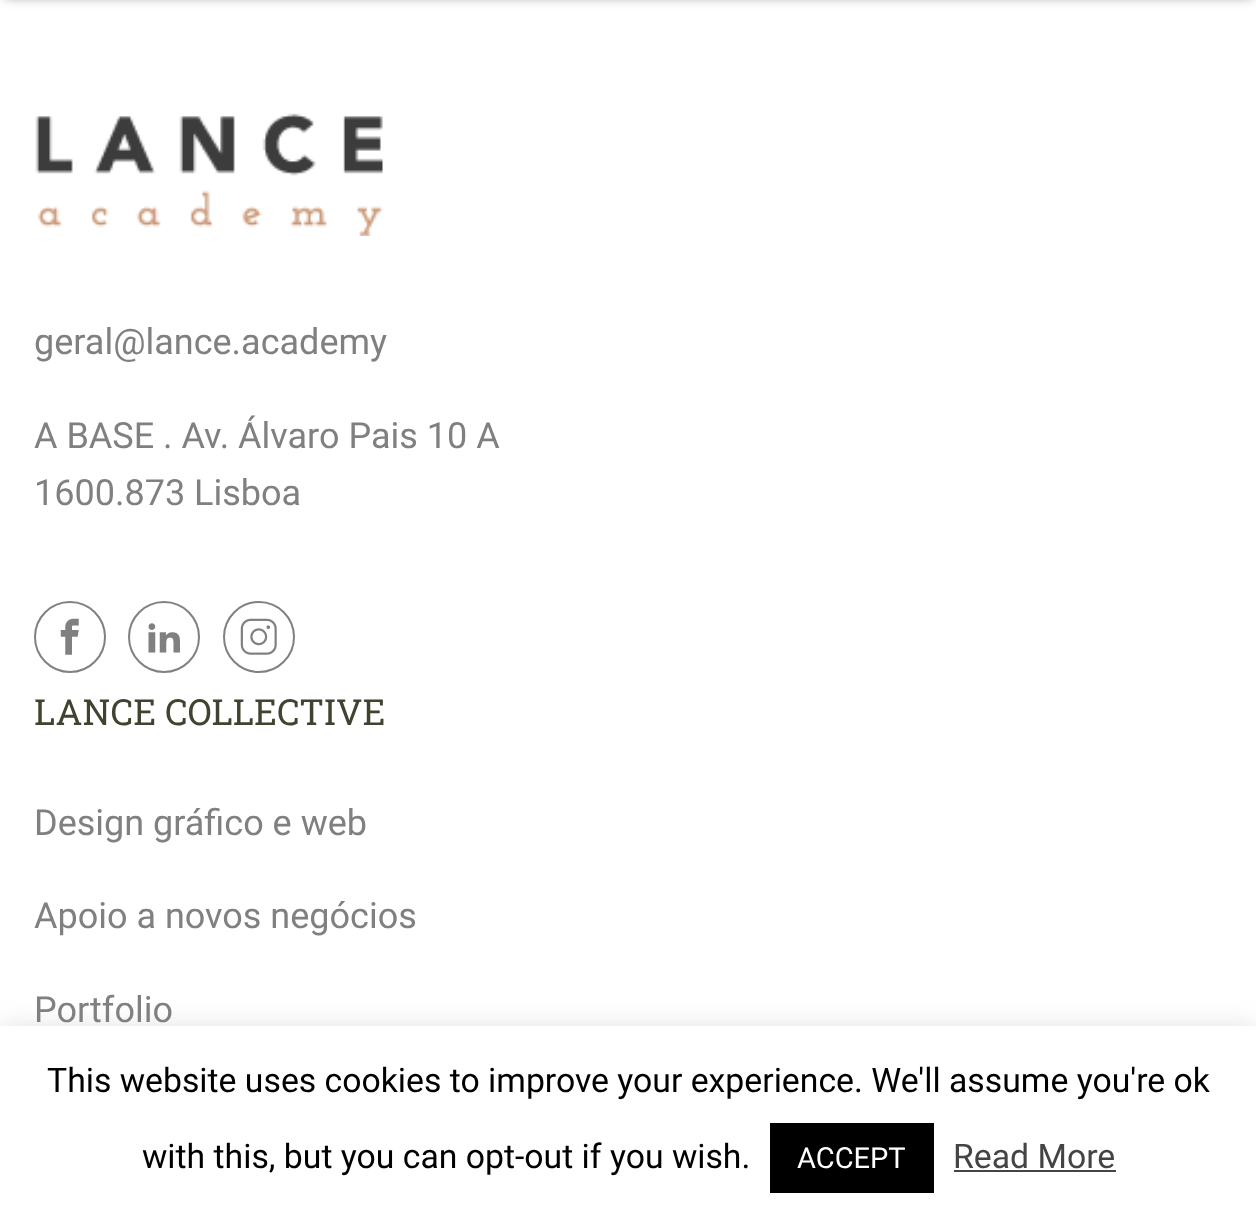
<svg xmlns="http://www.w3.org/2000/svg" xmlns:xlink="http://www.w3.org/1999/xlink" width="1256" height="1229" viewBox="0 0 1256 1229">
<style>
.cls-1{font:36px Roboto;fill:#808080}
.cls-2{font:36px Roboto Slab;fill:#41422f}
.cls-3{font:33.75px Roboto;fill:#000000}
.cls-4{font:29px Roboto;fill:#ffffff}
.cls-5{font:33.75px Roboto;fill:#444444}
</style>
<rect width="100%" height="100%" fill="#ffffff"/>
<rect fill="#2a2a2a" fill-opacity="0.4" filter="blur(5.5px)" x="5" y="-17" width="1248" height="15"/>
<image xlink:href="image0.png" x="35" y="113" width="348" height="123"/>
<circle fill="none" stroke="#808080" stroke-width="2" cx="70" cy="637" r="35"/>
<image xlink:href="image1.png" x="60" y="618" width="19" height="37"/>
<circle fill="none" stroke="#808080" stroke-width="2" cx="164" cy="637" r="35"/>
<image xlink:href="image2.png" x="148" y="623" width="32" height="30"/>
<circle fill="none" stroke="#808080" stroke-width="2" cx="259" cy="637" r="35"/>
<image xlink:href="image3.png" x="240" y="618" width="37" height="37"/>
<rect fill="#acabab" fill-opacity="0.3" filter="blur(11px)" x="0" y="1024" width="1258" height="205"/>
<rect fill="#ffffff" x="0" y="1026" width="1256" height="203"/>
<rect fill="#000000" x="770" y="1123" width="164" height="70"/>
<rect fill="#444444" x="954" y="1170" width="162" height="2"/>
<text class="cls-1" x="34" y="354">geral@lance.academy</text>
<text class="cls-1"><tspan x="34" y="448">A BASE . Av. Álvaro Pais 10 A</tspan><tspan x="34" y="505">1600.873 Lisboa</tspan></text>
<text class="cls-2" x="34" y="725">LANCE COLLECTIVE</text>
<text class="cls-1" x="34" y="835">Design gráfico e web</text>
<text class="cls-1" x="34" y="928">Apoio a novos negócios</text>
<text class="cls-1" x="34" y="1022">Portfolio</text>
<text class="cls-3" x="47" y="1092">This website uses cookies to improve your experience. We'll assume you're ok</text>
<text class="cls-3" x="142" y="1168">with this, but you can opt-out if you wish.</text>
<text class="cls-4" x="797" y="1168">ACCEPT</text>
<text class="cls-5" x="953" y="1168">Read More</text>
</svg>
